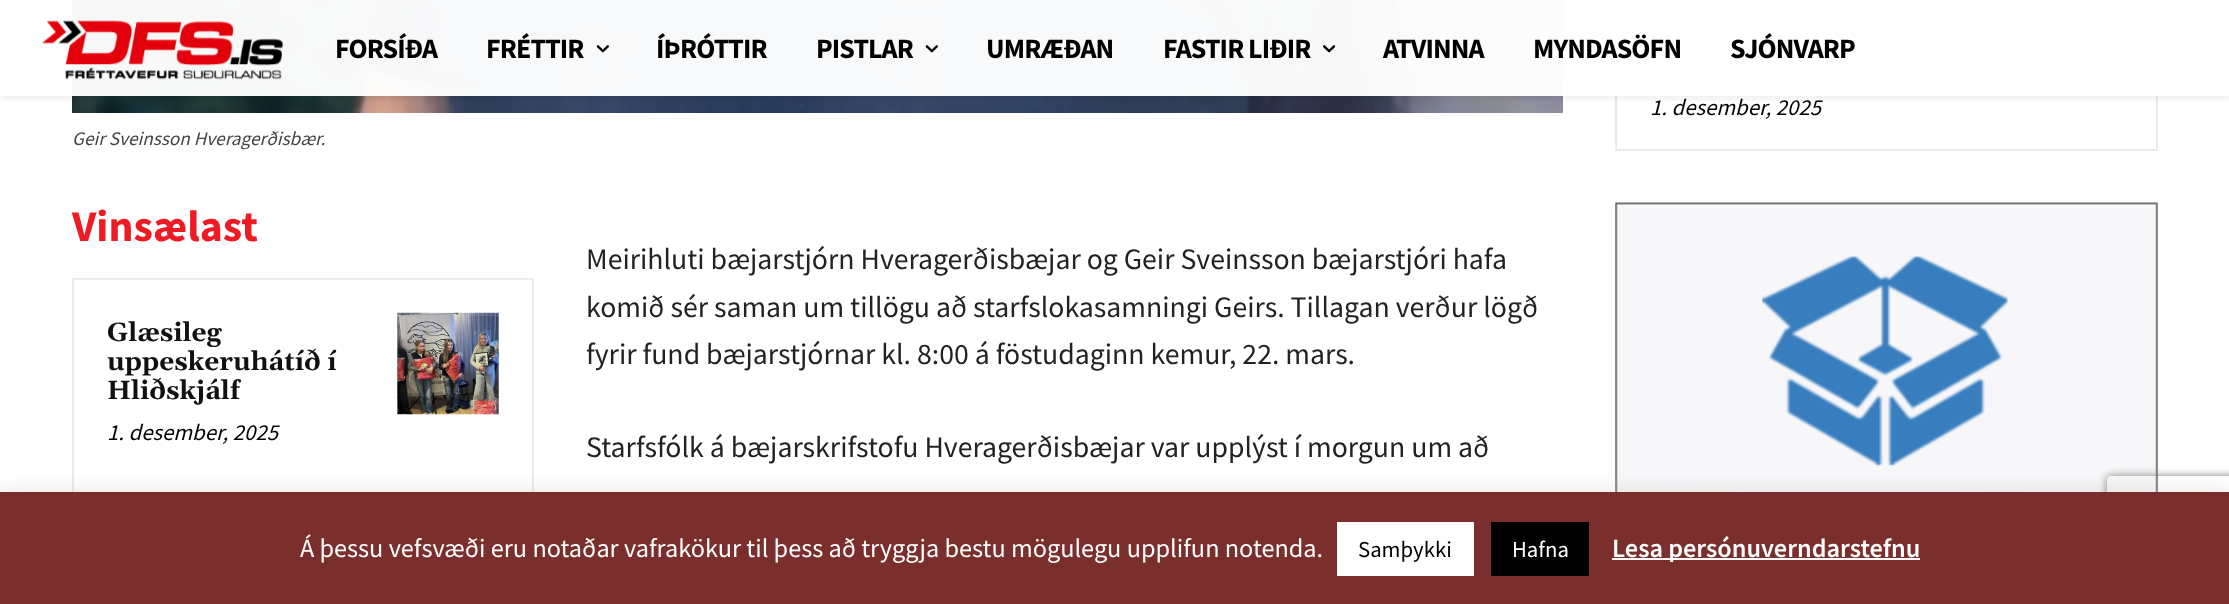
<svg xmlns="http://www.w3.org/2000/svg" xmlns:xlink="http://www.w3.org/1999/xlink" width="2229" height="604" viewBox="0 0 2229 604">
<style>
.cls-1{font:bold 28px Source Sans Pro;letter-spacing:-0.9px;fill:#000000}
.cls-2{font:italic 22.75px Source Sans Pro;fill:#000000}
.cls-3{font:italic 19.25px Source Sans Pro;fill:#444444}
.cls-4{font:bold 43.75px Source Sans Pro;fill:#ed1c24}
.cls-5{font:bold 26.25px Gelasio;fill:#111111}
.cls-6{font:29.75px Source Sans Pro;fill:#222222}
.cls-7{font:26.25px Source Sans Pro;fill:#ffffff}
.cls-8{font:22.75px Source Sans Pro;fill:#000000}
.cls-9{font:22.75px Source Sans Pro;fill:#ffffff}
.cls-10{font:600 26.25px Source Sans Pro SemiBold;fill:#ffffff}
</style>
<defs>
<clipPath id="clip1"><rect x="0" y="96" width="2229" height="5"/></clipPath>
<clipPath id="clip2"><path d="M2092 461H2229V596H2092ZM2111 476H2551C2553 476 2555 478 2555 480V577C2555 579 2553 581 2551 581H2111C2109 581 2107 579 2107 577V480C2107 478 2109 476 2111 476Z" clip-rule="evenodd"/></clipPath>
</defs>
<rect width="100%" height="100%" fill="#ffffff"/>
<rect fill="none" stroke="#eaeaea" stroke-width="2" x="1616" y="-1" width="541" height="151"/>
<image xlink:href="image5.png" x="72" y="0" width="1491" height="113"/>
<rect fill="#ffffff" fill-opacity="0.97" x="72" y="0" width="2086" height="96"/>
<image xlink:href="image0.png" x="42" y="20" width="242" height="60"/>
<g clip-path="url(#clip1)">
<rect fill="#000000" fill-opacity="0.06" filter="blur(3.5px)" x="0" y="4" width="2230" height="96"/>
</g>
<image xlink:href="image1.png" x="596" y="45" width="13" height="8"/>
<image xlink:href="image2.png" x="925" y="45" width="13" height="8"/>
<image xlink:href="image3.png" x="1323" y="45" width="13" height="8"/>
<image xlink:href="image4.png" x="1615" y="202" width="543" height="290"/>
<rect fill="none" stroke="#eaeaea" stroke-width="2" x="73" y="279" width="460" height="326"/>
<image xlink:href="image6.png" x="397" y="312" width="102" height="103"/>
<rect fill="#acabab" fill-opacity="0.3" filter="blur(9px)" x="0" y="490" width="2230" height="114"/>
<g clip-path="url(#clip2)">
<rect fill="#808080" filter="blur(4.5px)" x="2107" y="476" width="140" height="105" rx="4"/>
</g>
<rect fill="#7b2f2c" x="0" y="492" width="2229" height="112"/>
<rect fill="#ffffff" x="1337" y="522" width="137" height="54"/>
<rect fill="#000000" x="1491" y="522" width="98" height="54"/>
<rect fill="#ffffff" x="1612" y="558" width="308" height="2"/>
<text class="cls-1" x="335" y="58">FORSÍÐA</text>
<text class="cls-1" x="486" y="58">FRÉTTIR</text>
<text class="cls-1" x="656" y="58">ÍÞRÓTTIR</text>
<text class="cls-1" x="816" y="58">PISTLAR</text>
<text class="cls-1" x="986" y="58">UMRÆÐAN</text>
<text class="cls-1" x="1163" y="58">FASTIR LIÐIR</text>
<text class="cls-1" x="1383" y="58">ATVINNA</text>
<text class="cls-1" x="1533" y="58">MYNDASÖFN</text>
<text class="cls-1" x="1730" y="58">SJÓNVARP</text>
<text class="cls-2" x="1650" y="115">1. desember, 2025</text>
<text class="cls-3" x="72" y="145">Geir Sveinsson Hveragerðisbær.</text>
<text class="cls-4" x="72" y="241">Vinsælast</text>
<text class="cls-5"><tspan x="107" y="341">Glæsileg</tspan><tspan x="107" y="370">uppeskeruhátíð í</tspan><tspan x="107" y="399">Hliðskjálf</tspan></text>
<text class="cls-2" x="107" y="440">1. desember, 2025</text>
<text class="cls-6"><tspan x="586" y="269">Meirihluti bæjarstjórn Hveragerðisbæjar og Geir Sveinsson bæjarstjóri hafa</tspan><tspan x="586" y="317">komið sér saman um tillögu að starfslokasamningi Geirs. Tillagan verður lögð</tspan><tspan x="586" y="364">fyrir fund bæjarstjórnar kl. 8:00 á föstudaginn kemur, 22. mars.</tspan></text>
<text class="cls-6" x="586" y="457">Starfsfólk á bæjarskrifstofu Hveragerðisbæjar var upplýst í morgun um að</text>
<text class="cls-7" x="300" y="557">Á þessu vefsvæði eru notaðar vafrakökur til þess að tryggja bestu mögulegu upplifun notenda.</text>
<text class="cls-8" x="1358" y="557">Samþykki</text>
<text class="cls-9" x="1512" y="557">Hafna</text>
<text class="cls-10" x="1612" y="557">Lesa persónuverndarstefnu</text>
</svg>
